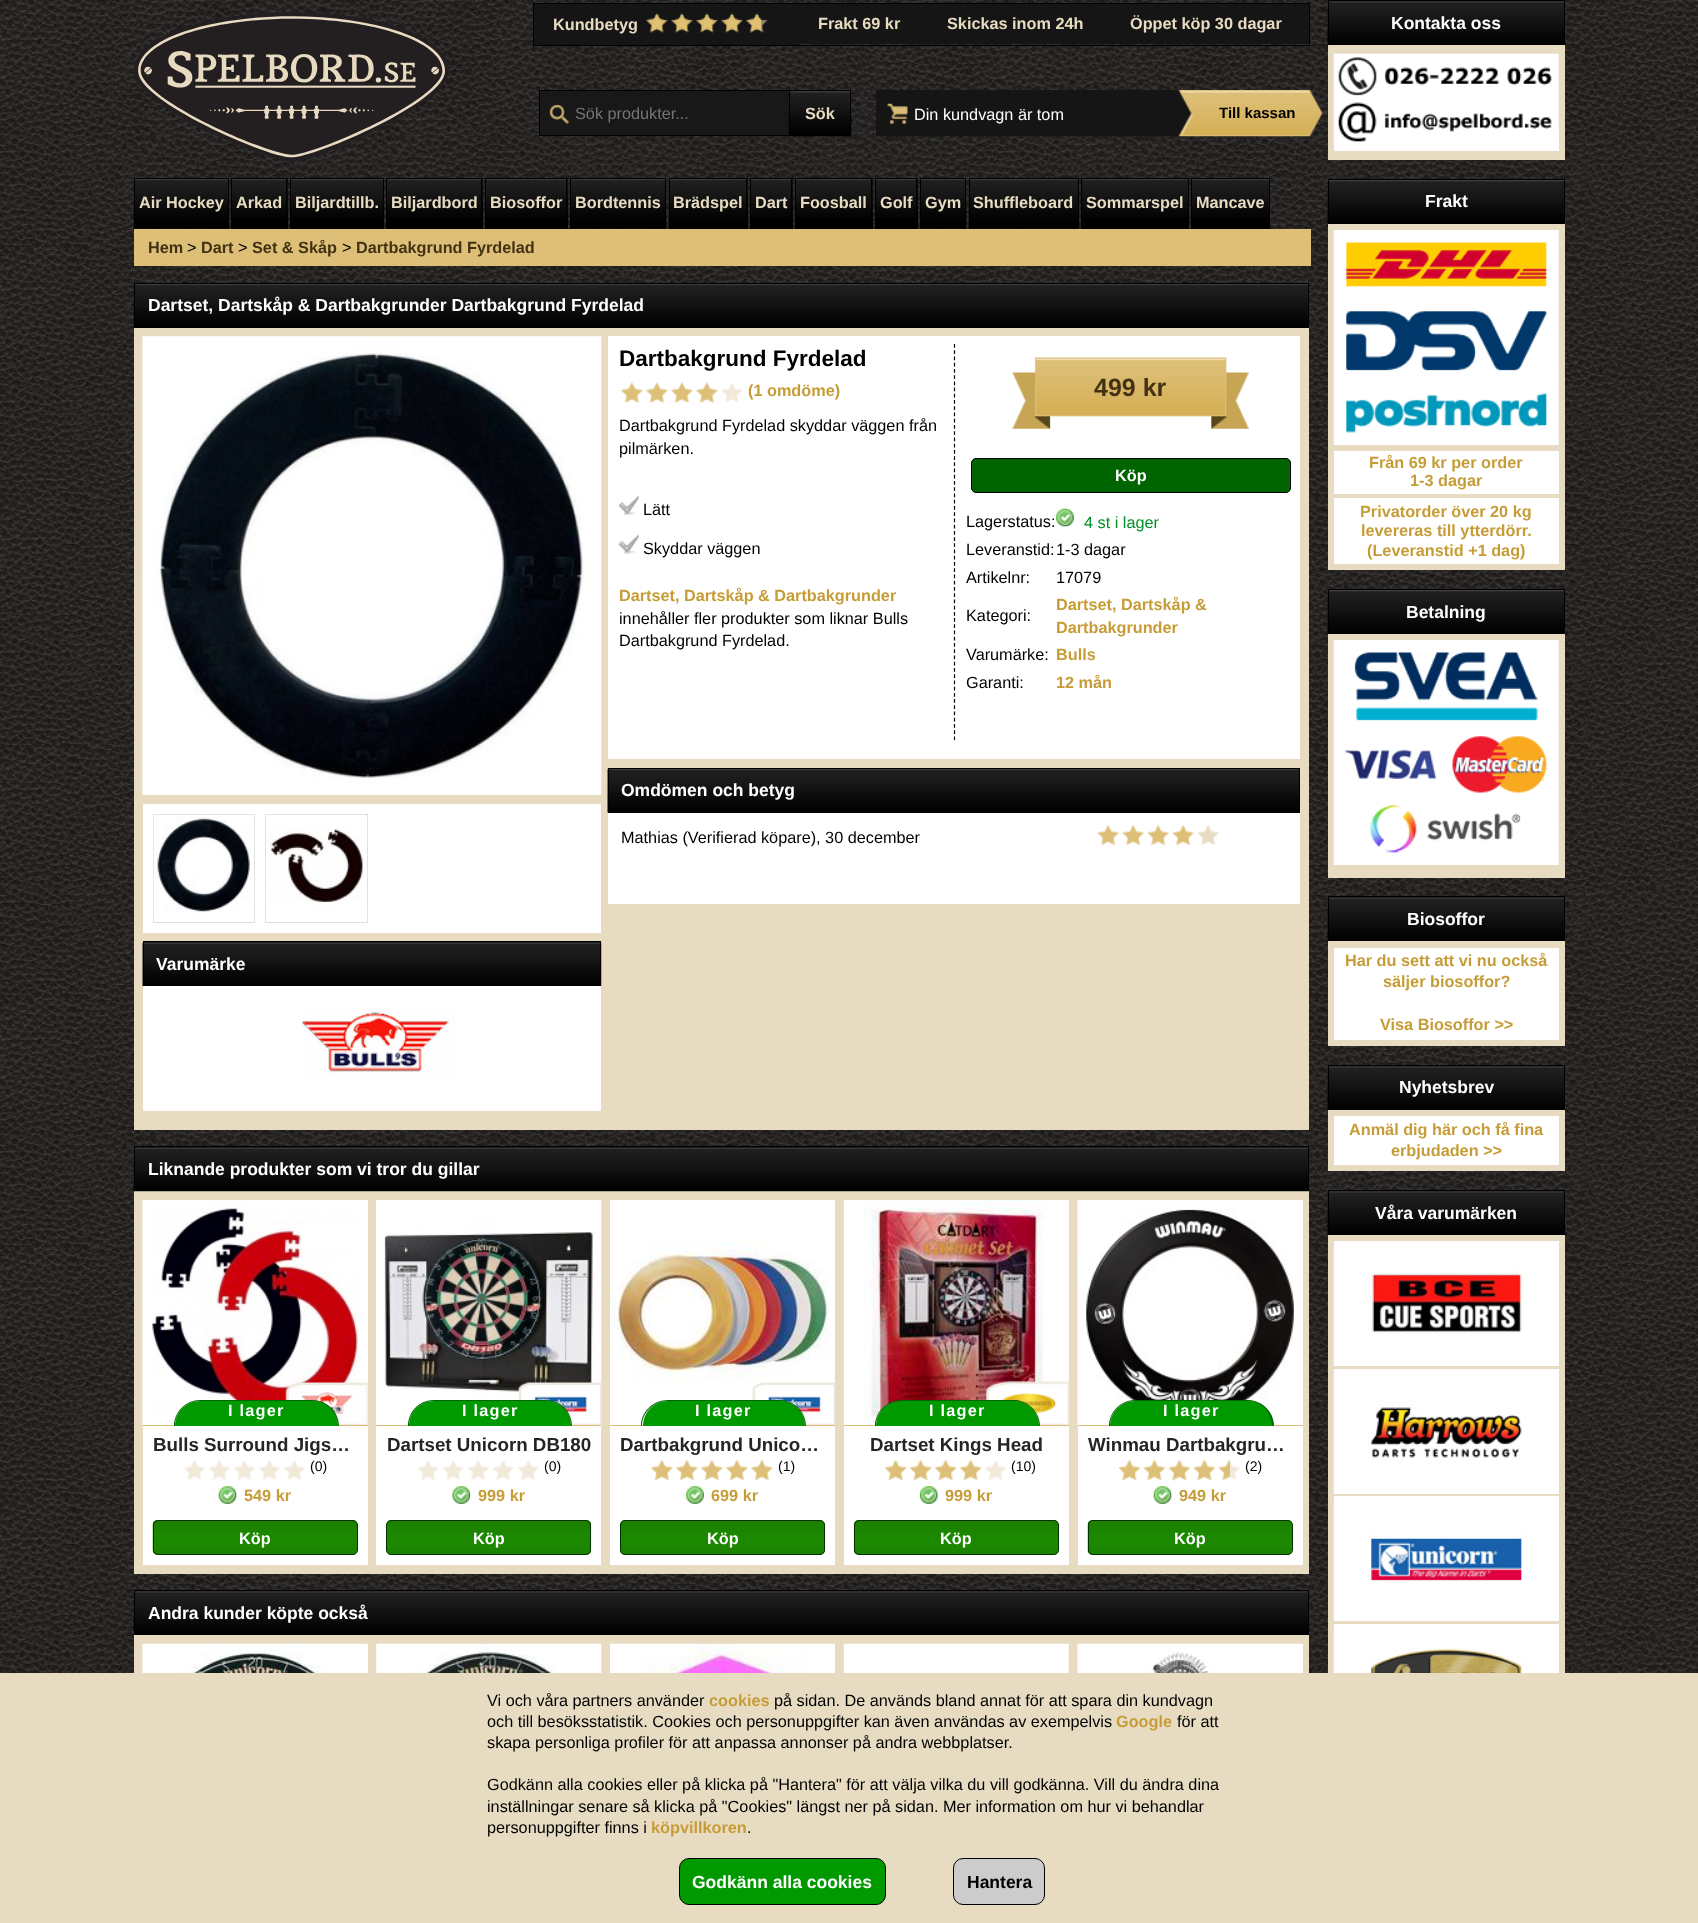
<svg xmlns="http://www.w3.org/2000/svg" xmlns:xlink="http://www.w3.org/1999/xlink" width="1698" height="1923" viewBox="0 0 1698 1923">
<style>
.cls-1{font:bold 16.25px Liberation Sans;fill:#e7dcc1}
.cls-2{font:16.25px Liberation Sans;fill:#757575}
.cls-3{font:16.25px Liberation Sans;fill:#ffffff}
.cls-4{font:bold 15px Liberation Sans;fill:#000000}
.cls-5{font:bold 16.25px Liberation Sans;fill:#423113}
.cls-6{font:16.25px Liberation Sans;fill:#000000}
.cls-7{font:bold 17.5px Liberation Sans;fill:#ffffff}
.cls-8{font:bold 16.25px Liberation Sans;fill:#c69c37}
.cls-9{font:bold 22.5px Liberation Sans;fill:#000000}
.cls-10{font:bold 25px Liberation Sans;fill:#423113}
.cls-11{font:bold 16.25px Liberation Sans;fill:#ffffff}
.cls-12{font:16.25px Liberation Sans;fill:#009027}
.cls-13{font:bold 16.25px Liberation Sans;letter-spacing:1.25px;fill:#ffffff}
.cls-14{font:bold 18.75px Liberation Sans;fill:#252525}
.cls-15{font:14px Liberation Sans;fill:#000000}
.cls-16{font:bold 17.5px Liberation Sans;fill:#000000}
</style>
<rect width="100%" height="100%" fill="#ffffff"/>
<image xlink:href="image0.png" x="0" y="0" width="1698" height="1673"/>
<image xlink:href="image1.png" x="134" y="12" width="315" height="149"/>
<rect fill="none" stroke="#000000" x="533.5" y="3.5" width="776" height="42"/>
<rect fill="#151515" x="534" y="4" width="266" height="41"/>
<image xlink:href="image2.png" x="646" y="13" width="122" height="20"/>
<rect fill="#151515" x="800" y="4" width="509" height="40"/>
<rect fill="#181818" x="540" y="91" width="249" height="44"/>
<image xlink:href="image3.png" x="549" y="104" width="20" height="20"/>
<rect fill="#000000" x="539" y="90" width="250" height="1"/>
<rect fill="#000000" x="539" y="135" width="250" height="1"/>
<rect fill="#000000" x="539" y="90" width="1" height="46"/>
<image xlink:href="image4.png" x="788" y="91" width="64" height="46"/>
<rect fill="none" stroke="#000000" x="789.5" y="90.5" width="61" height="45"/>
<rect fill="#151515" x="876" y="90" width="311" height="46"/>
<image xlink:href="image5.png" x="877" y="103" width="343" height="34"/>
<image xlink:href="image6.png" x="1178" y="90" width="145" height="47"/>
<image xlink:href="image7.png" x="133" y="178" width="95" height="51"/>
<rect fill="#000000" x="134" y="178" width="95" height="1"/>
<rect fill="#000000" x="228" y="178" width="1" height="51"/>
<rect fill="#000000" x="134" y="178" width="1" height="51"/>
<rect fill="#000000" x="232" y="179" width="56" height="50"/>
<image xlink:href="image8.png" x="232" y="179" width="56" height="38"/>
<rect fill="#000000" x="231" y="178" width="57" height="1"/>
<rect fill="#000000" x="286" y="178" width="1" height="39"/>
<rect fill="#000000" x="231" y="178" width="1" height="51"/>
<rect fill="#000000" x="291" y="217" width="92" height="12"/>
<image xlink:href="image9.png" x="291" y="179" width="92" height="38"/>
<rect fill="#000000" x="290" y="178" width="94" height="1"/>
<rect fill="#000000" x="383" y="178" width="1" height="51"/>
<rect fill="#000000" x="290" y="178" width="1" height="51"/>
<rect fill="#000000" x="387" y="179" width="96" height="50"/>
<image xlink:href="image10.png" x="387" y="179" width="96" height="38"/>
<rect fill="#000000" x="386" y="178" width="97" height="1"/>
<rect fill="#000000" x="481" y="178" width="1" height="39"/>
<rect fill="#000000" x="386" y="178" width="1" height="51"/>
<rect fill="#000000" x="486" y="179" width="82" height="50"/>
<image xlink:href="image11.png" x="486" y="179" width="82" height="38"/>
<rect fill="#000000" x="485" y="178" width="83" height="1"/>
<rect fill="#000000" x="566" y="178" width="1" height="39"/>
<rect fill="#000000" x="485" y="178" width="1" height="51"/>
<image xlink:href="image12.png" x="571" y="178" width="96" height="51"/>
<rect fill="#000000" x="570" y="178" width="96" height="1"/>
<rect fill="#000000" x="665" y="178" width="1" height="51"/>
<rect fill="#000000" x="570" y="178" width="1" height="51"/>
<rect fill="#000000" x="670" y="179" width="78" height="50"/>
<image xlink:href="image13.png" x="668" y="178" width="80" height="51"/>
<rect fill="#000000" x="669" y="178" width="79" height="1"/>
<rect fill="#000000" x="746" y="178" width="1" height="41"/>
<rect fill="#000000" x="669" y="178" width="1" height="51"/>
<rect fill="#000000" x="751" y="179" width="42" height="50"/>
<image xlink:href="image14.png" x="751" y="179" width="42" height="38"/>
<rect fill="#000000" x="750" y="178" width="43" height="1"/>
<rect fill="#000000" x="791" y="178" width="1" height="39"/>
<rect fill="#000000" x="750" y="178" width="1" height="51"/>
<rect fill="#000000" x="796" y="179" width="77" height="50"/>
<image xlink:href="image15.png" x="796" y="179" width="77" height="38"/>
<rect fill="#000000" x="795" y="178" width="78" height="1"/>
<rect fill="#000000" x="871" y="178" width="1" height="39"/>
<rect fill="#000000" x="795" y="178" width="1" height="51"/>
<rect fill="#000000" x="876" y="179" width="42" height="50"/>
<image xlink:href="image14.png" x="876" y="179" width="42" height="38"/>
<rect fill="#000000" x="875" y="178" width="43" height="1"/>
<rect fill="#000000" x="916" y="178" width="1" height="39"/>
<rect fill="#000000" x="875" y="178" width="1" height="51"/>
<image xlink:href="image16.png" x="921" y="178" width="46" height="51"/>
<rect fill="#000000" x="920" y="178" width="46" height="1"/>
<rect fill="#000000" x="965" y="178" width="1" height="51"/>
<rect fill="#000000" x="920" y="178" width="1" height="51"/>
<image xlink:href="image17.png" x="968" y="178" width="110" height="51"/>
<rect fill="#000000" x="969" y="178" width="110" height="1"/>
<rect fill="#000000" x="1078" y="178" width="1" height="51"/>
<rect fill="#000000" x="969" y="178" width="1" height="51"/>
<rect fill="#000000" x="1082" y="217" width="106" height="12"/>
<image xlink:href="image18.png" x="1082" y="179" width="106" height="38"/>
<rect fill="#000000" x="1081" y="178" width="108" height="1"/>
<rect fill="#000000" x="1188" y="178" width="1" height="51"/>
<rect fill="#000000" x="1081" y="178" width="1" height="51"/>
<rect fill="#000000" x="1192" y="217" width="77" height="12"/>
<image xlink:href="image19.png" x="1192" y="179" width="77" height="38"/>
<rect fill="#000000" x="1191" y="178" width="79" height="1"/>
<rect fill="#000000" x="1269" y="178" width="1" height="51"/>
<rect fill="#000000" x="1191" y="178" width="1" height="51"/>
<rect fill="#ddbf77" x="134" y="229" width="1177" height="37"/>
<rect fill="#000000" x="1329" y="0" width="235" height="2"/>
<image xlink:href="image20.png" x="1327" y="1" width="237" height="44"/>
<rect fill="#000000" x="1564" y="0" width="1" height="45"/>
<rect fill="#000000" x="1328" y="0" width="1" height="45"/>
<rect fill="#e7dcc1" x="1328" y="45" width="237" height="115"/>
<rect fill="#ffffff" x="1334" y="133" width="225" height="18"/>
<image xlink:href="image21.png" x="1333" y="53" width="226" height="92"/>
<rect fill="#000000" x="1329" y="179" width="236" height="45"/>
<image xlink:href="image22.png" x="1327" y="180" width="237" height="44"/>
<rect fill="#000000" x="1328" y="179" width="1" height="45"/>
<rect fill="#e7dcc1" x="1328" y="224" width="237" height="346"/>
<image xlink:href="image23.png" x="1333" y="230" width="226" height="215"/>
<rect fill="#ffffff" x="1334" y="451" width="225" height="43"/>
<rect fill="#ffffff" x="1334" y="498" width="225" height="66"/>
<rect fill="#000000" x="1329" y="589" width="236" height="45"/>
<image xlink:href="image24.png" x="1327" y="590" width="237" height="44"/>
<rect fill="#000000" x="1328" y="589" width="1" height="45"/>
<rect fill="#e7dcc1" x="1328" y="634" width="237" height="244"/>
<image xlink:href="image25.png" x="1333" y="640" width="226" height="225"/>
<rect fill="#000000" x="1329" y="896" width="235" height="2"/>
<image xlink:href="image26.png" x="1327" y="897" width="237" height="45"/>
<rect fill="#000000" x="1564" y="896" width="1" height="45"/>
<rect fill="#000000" x="1328" y="896" width="1" height="45"/>
<rect fill="#e7dcc1" x="1328" y="941" width="237" height="105"/>
<rect fill="#ffffff" x="1334" y="948" width="225" height="92"/>
<rect fill="#000000" x="1329" y="1065" width="235" height="2"/>
<image xlink:href="image27.png" x="1327" y="1066" width="237" height="44"/>
<rect fill="#000000" x="1564" y="1065" width="1" height="45"/>
<rect fill="#000000" x="1328" y="1065" width="1" height="45"/>
<rect fill="#e7dcc1" x="1328" y="1110" width="237" height="61"/>
<rect fill="#ffffff" x="1334" y="1116" width="225" height="49"/>
<rect fill="#000000" x="1329" y="1190" width="235" height="2"/>
<image xlink:href="image28.png" x="1327" y="1191" width="237" height="44"/>
<rect fill="#000000" x="1564" y="1190" width="1" height="45"/>
<rect fill="#000000" x="1328" y="1190" width="1" height="45"/>
<rect fill="#e7dcc1" x="1328" y="1235" width="237" height="438"/>
<image xlink:href="image29.png" x="1333" y="1245" width="213" height="119"/>
<rect fill="none" stroke="#ffffff" stroke-width="13" x="1340.5" y="1247.5" width="212" height="112"/>
<image xlink:href="image30.png" x="1333" y="1372" width="213" height="120"/>
<rect fill="none" stroke="#ffffff" stroke-width="13" x="1340.5" y="1375.5" width="212" height="112"/>
<image xlink:href="image31.png" x="1333" y="1500" width="213" height="119"/>
<rect fill="none" stroke="#ffffff" stroke-width="13" x="1340.5" y="1502.5" width="212" height="112"/>
<image xlink:href="image32.png" x="1333" y="1627" width="213" height="46"/>
<rect fill="none" stroke="#ffffff" stroke-width="13" x="1340.5" y="1630.5" width="212" height="112"/>
<rect fill="#e7dcc1" x="134" y="328" width="1175" height="802"/>
<rect fill="#000000" x="135" y="327" width="1173" height="1"/>
<image xlink:href="image33.png" x="133" y="283" width="1175" height="45"/>
<rect fill="#000000" x="134" y="283" width="1175" height="1"/>
<rect fill="#000000" x="1308" y="283" width="1" height="45"/>
<rect fill="#000000" x="134" y="283" width="1" height="45"/>
<rect fill="#ffffff" x="608" y="336" width="692" height="423"/>
<image xlink:href="image34.png" x="621" y="382" width="122" height="21"/>
<image xlink:href="image35.png" x="621" y="382" width="97" height="21"/>
<path fill="none" stroke="#000000" stroke-width="1.2" stroke-dasharray="3.75 2.48" d="M954.5 344V740"/>
<image xlink:href="image36.png" x="1012" y="357" width="237" height="72"/>
<rect fill="#006400" stroke="#000000" x="971.5" y="458.5" width="319" height="34" rx="4.5"/>
<image xlink:href="image37.png" x="1056" y="508" width="18" height="19"/>
<image xlink:href="image38.png" x="618" y="495" width="21" height="20"/>
<image xlink:href="image39.png" x="618" y="534" width="21" height="20"/>
<rect fill="#000000" x="609" y="812" width="690" height="1"/>
<image xlink:href="image40.png" x="607" y="768" width="692" height="45"/>
<rect fill="#000000" x="608" y="768" width="692" height="1"/>
<rect fill="#000000" x="1299" y="768" width="1" height="45"/>
<rect fill="#000000" x="608" y="768" width="1" height="45"/>
<rect fill="#ffffff" x="608" y="813" width="692" height="91"/>
<image xlink:href="image41.png" x="1097" y="825" width="122" height="21"/>
<image xlink:href="image42.png" x="142" y="336" width="460" height="459"/>
<rect fill="#ffffff" x="143" y="804" width="458" height="129"/>
<rect fill="none" stroke="#e1e1e1" x="153.5" y="814.5" width="101" height="108"/>
<image xlink:href="image43.png" x="153" y="815" width="97" height="100"/>
<rect fill="none" stroke="#e1e1e1" x="265.5" y="814.5" width="102" height="108"/>
<image xlink:href="image44.png" x="267" y="826" width="97" height="81"/>
<rect fill="#000000" x="144" y="941" width="456" height="2"/>
<image xlink:href="image45.png" x="142" y="942" width="460" height="45"/>
<rect fill="#000000" x="600" y="941" width="1" height="45"/>
<rect fill="#000000" x="143" y="941" width="1" height="45"/>
<rect fill="#ffffff" x="143" y="986" width="458" height="125"/>
<image xlink:href="image46.png" x="302" y="1010" width="153" height="66"/>
<rect fill="#e7dcc1" x="134" y="1191" width="1175" height="383"/>
<rect fill="#000000" x="135" y="1146" width="1173" height="2"/>
<image xlink:href="image47.png" x="133" y="1147" width="1176" height="45"/>
<rect fill="#000000" x="1308" y="1146" width="1" height="45"/>
<rect fill="#000000" x="134" y="1146" width="1" height="45"/>
<rect fill="#ffffff" x="143" y="1200" width="225" height="365"/>
<image xlink:href="image48.png" x="142" y="1200" width="220" height="225"/>
<image xlink:href="image49.png" x="285" y="1382" width="83" height="43"/>
<rect fill="#ddbf77" x="143" y="1425" width="225" height="1"/>
<path fill="#009900" d="M200 1401H313C327 1401 338 1412 338 1426H175C175 1412 186 1401 200 1401Z"/>
<path fill="#006600" fill-rule="evenodd" d="M200 1400H312C327 1400 339 1412 339 1426H174C174 1412 186 1400 200 1400ZM200 1401H312C326 1401 338 1412 338 1426H175C175 1412 186 1401 200 1401Z"/>
<image xlink:href="image50.png" x="184" y="1460" width="121" height="20"/>
<image xlink:href="image51.png" x="218" y="1486" width="19" height="18"/>
<image xlink:href="image52.png" x="152" y="1520" width="206" height="35"/>
<rect fill="none" stroke="#003300" x="153.5" y="1520.5" width="204" height="34" rx="4.5"/>
<rect fill="#ffffff" x="376" y="1200" width="225" height="365"/>
<image xlink:href="image53.png" x="384" y="1200" width="218" height="225"/>
<image xlink:href="image54.png" x="518" y="1382" width="83" height="43"/>
<rect fill="#ddbf77" x="376" y="1425" width="225" height="1"/>
<path fill="#009900" d="M434 1401H546C560 1401 571 1412 571 1426H409C409 1412 420 1401 434 1401Z"/>
<path fill="#006600" fill-rule="evenodd" d="M434 1400H546C561 1400 572 1412 572 1426H408C408 1412 419 1400 434 1400ZM434 1401H546C560 1401 571 1412 571 1426H409C409 1412 420 1401 434 1401Z"/>
<image xlink:href="image55.png" x="417" y="1460" width="122" height="20"/>
<image xlink:href="image56.png" x="452" y="1486" width="18" height="18"/>
<image xlink:href="image57.png" x="386" y="1520" width="206" height="35"/>
<rect fill="none" stroke="#003300" x="386.5" y="1520.5" width="204" height="34" rx="4.5"/>
<rect fill="#ffffff" x="610" y="1200" width="225" height="365"/>
<image xlink:href="image58.png" x="610" y="1239" width="220" height="142"/>
<image xlink:href="image59.png" x="752" y="1382" width="83" height="43"/>
<rect fill="#ddbf77" x="610" y="1425" width="225" height="1"/>
<path fill="#009900" d="M668 1401H780C794 1401 805 1412 805 1426H643C643 1412 654 1401 668 1401Z"/>
<path fill="#006600" fill-rule="evenodd" d="M668 1400H780C794 1400 806 1412 806 1426H641C641 1412 653 1400 668 1400ZM668 1401H780C794 1401 805 1412 805 1426H642C642 1412 654 1401 668 1401Z"/>
<image xlink:href="image60.png" x="651" y="1460" width="122" height="20"/>
<image xlink:href="image61.png" x="651" y="1459" width="126" height="22"/>
<image xlink:href="image62.png" x="686" y="1486" width="18" height="18"/>
<image xlink:href="image63.png" x="620" y="1520" width="205" height="35"/>
<rect fill="none" stroke="#003300" x="620.5" y="1520.5" width="204" height="34" rx="4.5"/>
<rect fill="#ffffff" x="844" y="1200" width="225" height="365"/>
<image xlink:href="image64.png" x="843" y="1200" width="201" height="225"/>
<image xlink:href="image65.png" x="986" y="1381" width="83" height="44"/>
<rect fill="#ddbf77" x="844" y="1425" width="225" height="1"/>
<path fill="#009900" d="M901 1401H1014C1028 1401 1039 1412 1039 1426H876C876 1412 887 1401 901 1401Z"/>
<path fill="#006600" fill-rule="evenodd" d="M901 1400H1014C1028 1400 1040 1412 1040 1426H875C875 1412 887 1400 901 1400ZM901 1401H1014C1028 1401 1039 1412 1039 1426H876C876 1412 887 1401 901 1401Z"/>
<image xlink:href="image66.png" x="885" y="1460" width="122" height="20"/>
<image xlink:href="image67.png" x="884" y="1459" width="98" height="22"/>
<image xlink:href="image68.png" x="920" y="1486" width="18" height="18"/>
<image xlink:href="image69.png" x="853" y="1520" width="206" height="35"/>
<rect fill="none" stroke="#003300" x="854.5" y="1520.5" width="204" height="34" rx="4.5"/>
<rect fill="#ffffff" x="1078" y="1200" width="225" height="365"/>
<image xlink:href="image70.png" x="1077" y="1200" width="217" height="225"/>
<rect fill="#ddbf77" x="1078" y="1425" width="225" height="1"/>
<path fill="#009900" d="M1135 1401H1248C1262 1401 1273 1412 1273 1426H1110C1110 1412 1121 1401 1135 1401Z"/>
<path fill="#006600" fill-rule="evenodd" d="M1135 1400H1248C1262 1400 1274 1412 1274 1426H1109C1109 1412 1121 1400 1135 1400ZM1135 1401H1248C1261 1401 1272 1412 1272 1426H1110C1110 1412 1121 1401 1135 1401Z"/>
<image xlink:href="image50.png" x="1119" y="1460" width="121" height="20"/>
<image xlink:href="image71.png" x="1118" y="1459" width="112" height="22"/>
<image xlink:href="image72.png" x="1153" y="1486" width="19" height="18"/>
<image xlink:href="image52.png" x="1087" y="1520" width="206" height="35"/>
<rect fill="none" stroke="#003300" x="1088.5" y="1520.5" width="204" height="34" rx="4.5"/>
<rect fill="#e7dcc1" x="134" y="1635" width="1175" height="38"/>
<rect fill="#000000" x="135" y="1590" width="1173" height="2"/>
<image xlink:href="image73.png" x="133" y="1591" width="1175" height="44"/>
<rect fill="#000000" x="1308" y="1590" width="1" height="45"/>
<rect fill="#000000" x="134" y="1590" width="1" height="45"/>
<rect fill="#ffffff" x="367" y="1644" width="1" height="29"/>
<image xlink:href="image74.png" x="142" y="1643" width="226" height="30"/>
<image xlink:href="image75.png" x="376" y="1643" width="226" height="30"/>
<image xlink:href="image76.png" x="610" y="1643" width="225" height="30"/>
<image xlink:href="image77.png" x="843" y="1643" width="226" height="30"/>
<rect fill="#ffffff" x="1302" y="1644" width="1" height="29"/>
<image xlink:href="image78.png" x="1077" y="1643" width="226" height="30"/>
<rect fill="#e7dcc1" x="0" y="1673" width="1698" height="250"/>
<rect fill="#009900" stroke="#000000" x="679.5" y="1858.5" width="206" height="46" rx="9.5"/>
<rect fill="#cccccc" stroke="#000000" x="953.5" y="1858.5" width="91" height="46" rx="9.5"/>
<text class="cls-1" x="553" y="30">Kundbetyg</text>
<text class="cls-1" x="818" y="29">Frakt 69 kr</text>
<text class="cls-1" x="947" y="29">Skickas inom 24h</text>
<text class="cls-1" x="1130" y="29">Öppet köp 30 dagar</text>
<text class="cls-2" x="575" y="119">Sök produkter...</text>
<text class="cls-1" x="805" y="119">Sök</text>
<text class="cls-3" x="914" y="120">Din kundvagn är tom</text>
<text class="cls-4" x="1219" y="118">Till kassan</text>
<text class="cls-1" x="139" y="208">Air Hockey</text>
<text class="cls-1" x="236" y="208">Arkad</text>
<text class="cls-1" x="295" y="208">Biljardtillb.</text>
<text class="cls-1" x="391" y="208">Biljardbord</text>
<text class="cls-1" x="490" y="208">Biosoffor</text>
<text class="cls-1" x="575" y="208">Bordtennis</text>
<text class="cls-1" x="673" y="208">Brädspel</text>
<text class="cls-1" x="755" y="208">Dart</text>
<text class="cls-1" x="800" y="208">Foosball</text>
<text class="cls-1" x="880" y="208">Golf</text>
<text class="cls-1" x="925" y="208">Gym</text>
<text class="cls-1" x="973" y="208">Shuffleboard</text>
<text class="cls-1" x="1086" y="208">Sommarspel</text>
<text class="cls-1" x="1196" y="208">Mancave</text>
<text class="cls-5" x="148" y="253">Hem</text>
<text class="cls-6" x="187" y="253">&gt;</text>
<text class="cls-5" x="201" y="253">Dart</text>
<text class="cls-6" x="238" y="253">&gt;</text>
<text class="cls-5" x="252" y="253">Set &amp; Skåp</text>
<text class="cls-6" x="342" y="253">&gt;</text>
<text class="cls-5" x="356" y="253">Dartbakgrund Fyrdelad</text>
<text class="cls-7" x="1391" y="29">Kontakta oss</text>
<text class="cls-7" x="1425" y="207">Frakt</text>
<text class="cls-8" x="1369" y="468">Från 69 kr per order</text>
<text class="cls-8" x="1410" y="486">1-3 dagar</text>
<text class="cls-8" x="1360" y="517">Privatorder över 20 kg</text>
<text class="cls-8" x="1361" y="536">levereras till ytterdörr.</text>
<text class="cls-8" x="1367" y="556">(Leveranstid +1 dag)</text>
<text class="cls-7" x="1406" y="618">Betalning</text>
<text class="cls-7" x="1407" y="925">Biosoffor</text>
<text class="cls-8" x="1345" y="966">Har du sett att vi nu också</text>
<text class="cls-8" x="1383" y="987">säljer biosoffor?</text>
<text class="cls-8" x="1380" y="1030">Visa Biosoffor &gt;&gt;</text>
<text class="cls-7" x="1399" y="1093">Nyhetsbrev</text>
<text class="cls-8" x="1349" y="1135">Anmäl dig här och få fina</text>
<text class="cls-8" x="1391" y="1156">erbjudaden &gt;&gt;</text>
<text class="cls-7" x="1375" y="1219">Våra varumärken</text>
<text class="cls-7" x="148" y="311">Dartset, Dartskåp &amp; Dartbakgrunder Dartbakgrund Fyrdelad</text>
<text class="cls-9" x="619" y="366">Dartbakgrund Fyrdelad</text>
<text class="cls-8" x="748" y="396">(1 omdöme)</text>
<text class="cls-10" x="1094" y="396">499 kr</text>
<text class="cls-11" x="1115" y="481">Köp</text>
<text class="cls-6" x="966" y="527">Lagerstatus:</text>
<text class="cls-12" x="1084" y="528">4 st i lager</text>
<text class="cls-6" x="966" y="555">Leveranstid:</text>
<text class="cls-6" x="1056" y="555">1-3 dagar</text>
<text class="cls-6" x="966" y="583">Artikelnr:</text>
<text class="cls-6" x="1056" y="583">17079</text>
<text class="cls-6" x="966" y="621">Kategori:</text>
<text class="cls-8"><tspan x="1056" y="610">Dartset, Dartskåp &amp;</tspan><tspan x="1056" y="633">Dartbakgrunder</tspan></text>
<text class="cls-6" x="966" y="660">Varumärke:</text>
<text class="cls-8" x="1056" y="660">Bulls</text>
<text class="cls-6" x="966" y="688">Garanti:</text>
<text class="cls-8" x="1056" y="688">12 mån</text>
<text class="cls-6"><tspan x="619" y="431">Dartbakgrund Fyrdelad skyddar väggen från</tspan><tspan x="619" y="454">pilmärken.</tspan></text>
<text class="cls-6" x="643" y="515">Lätt</text>
<text class="cls-6" x="643" y="554">Skyddar väggen</text>
<text class="cls-8" x="619" y="601">Dartset, Dartskåp &amp; Dartbakgrunder</text>
<text class="cls-6"><tspan x="619" y="624">innehåller fler produkter som liknar Bulls</tspan><tspan x="619" y="646">Dartbakgrund Fyrdelad.</tspan></text>
<text class="cls-7" x="621" y="796">Omdömen och betyg</text>
<text class="cls-6" x="621" y="843">Mathias (Verifierad köpare), 30 december</text>
<text class="cls-7" x="156" y="970">Varumärke</text>
<text class="cls-7" x="148" y="1175">Liknande produkter som vi tror du gillar</text>
<text class="cls-13" x="228" y="1416">I lager</text>
<text class="cls-14" x="153" y="1451">Bulls Surround Jigs…</text>
<text class="cls-15" x="310" y="1471">(0)</text>
<text class="cls-8" x="244" y="1501">549 kr</text>
<text class="cls-11" x="239" y="1544">Köp</text>
<text class="cls-13" x="462" y="1416">I lager</text>
<text class="cls-14" x="387" y="1451">Dartset Unicorn DB180</text>
<text class="cls-15" x="544" y="1471">(0)</text>
<text class="cls-8" x="478" y="1501">999 kr</text>
<text class="cls-11" x="473" y="1544">Köp</text>
<text class="cls-13" x="695" y="1416">I lager</text>
<text class="cls-14" x="620" y="1451">Dartbakgrund Unico…</text>
<text class="cls-15" x="778" y="1471">(1)</text>
<text class="cls-8" x="711" y="1501">699 kr</text>
<text class="cls-11" x="707" y="1544">Köp</text>
<text class="cls-13" x="929" y="1416">I lager</text>
<text class="cls-14" x="870" y="1451">Dartset Kings Head</text>
<text class="cls-15" x="1011" y="1471">(10)</text>
<text class="cls-8" x="945" y="1501">999 kr</text>
<text class="cls-11" x="940" y="1544">Köp</text>
<text class="cls-13" x="1163" y="1416">I lager</text>
<text class="cls-14" x="1088" y="1451">Winmau Dartbakgru…</text>
<text class="cls-15" x="1245" y="1471">(2)</text>
<text class="cls-8" x="1179" y="1501">949 kr</text>
<text class="cls-11" x="1174" y="1544">Köp</text>
<text class="cls-7" x="148" y="1619">Andra kunder köpte också</text>
<text class="cls-6" x="487" y="1706">Vi och våra partners använder</text>
<text class="cls-8" x="709" y="1706">cookies</text>
<text class="cls-6" x="774" y="1706">på sidan. De används bland annat för att spara din kundvagn</text>
<text class="cls-6" x="487" y="1727">och till besöksstatistik. Cookies och personuppgifter kan även användas av exempelvis</text>
<text class="cls-8" x="1116" y="1727">Google</text>
<text class="cls-6" x="1177" y="1727">för att</text>
<text class="cls-6" x="487" y="1748">skapa personliga profiler för att anpassa annonser på andra webbplatser.</text>
<text class="cls-6"><tspan x="487" y="1790">Godkänn alla cookies eller på klicka på "Hantera" för att välja vilka du vill godkänna. Vill du ändra dina</tspan><tspan x="487" y="1812">inställningar senare så klicka på "Cookies" längst ner på sidan. Mer information om hur vi behandlar</tspan><tspan x="487" y="1833">personuppgifter finns i</tspan></text>
<text class="cls-8" x="651" y="1833">köpvillkoren</text>
<text class="cls-6" x="747" y="1833">.</text>
<text class="cls-7" x="692" y="1888">Godkänn alla cookies</text>
<text class="cls-16" x="967" y="1888">Hantera</text>
</svg>
